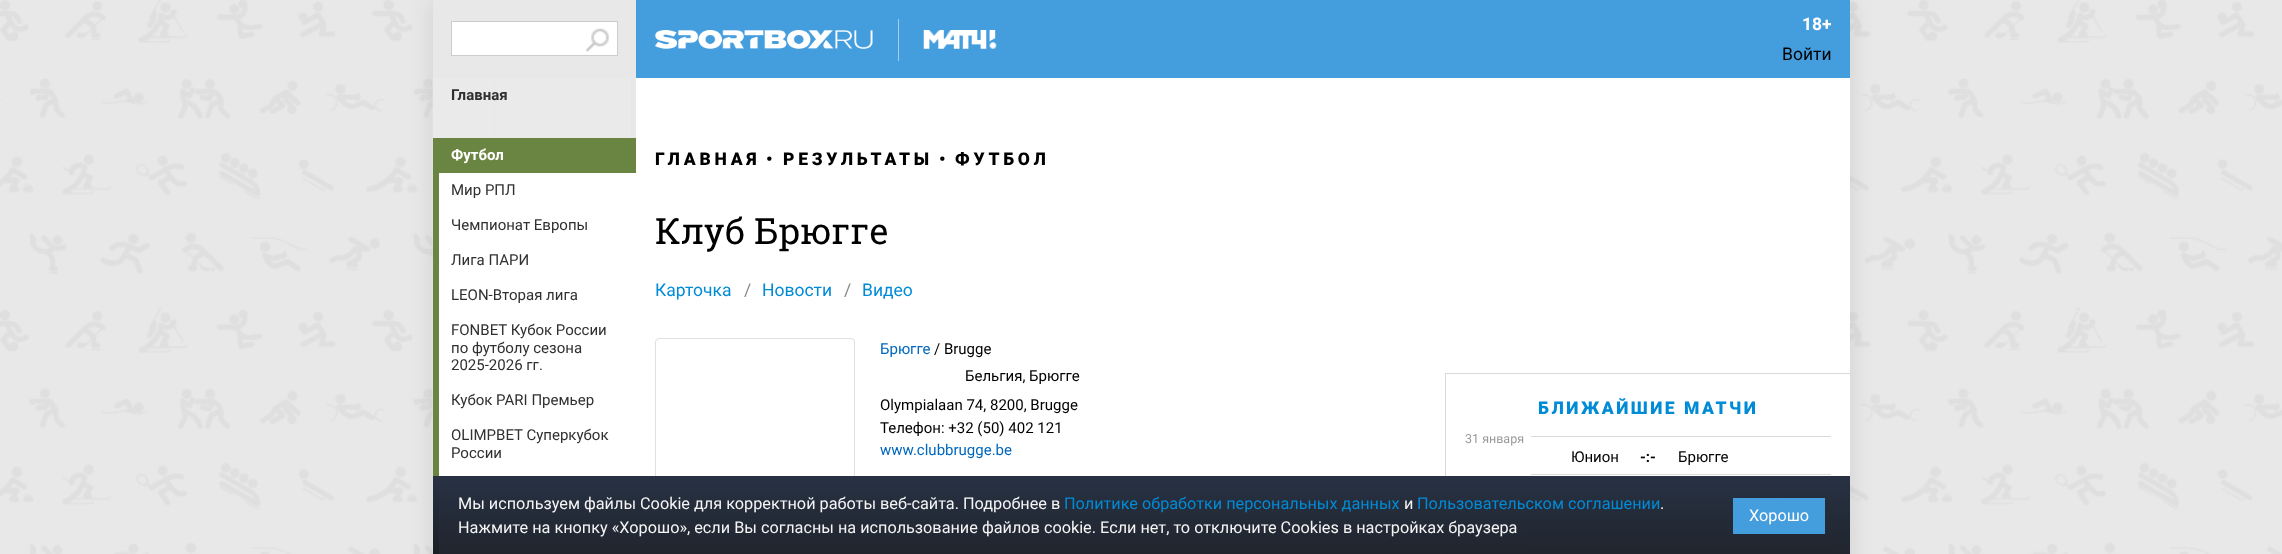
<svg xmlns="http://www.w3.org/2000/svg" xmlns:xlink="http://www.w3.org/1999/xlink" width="2282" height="554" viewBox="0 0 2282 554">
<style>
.cls-1{font:bold 17.5px Roboto;fill:#ffffff}
.cls-2{font:17.5px Roboto;fill:#000000}
.cls-3{font:bold 15px Roboto;fill:#303030}
.cls-4{font:bold 15px Roboto;fill:#ffffff}
.cls-5{font:15px Roboto;fill:#303030}
.cls-6{font:900 17.5px Roboto;letter-spacing:3.75px;fill:#000000}
.cls-7{font:900 17.5px Roboto;fill:#000000}
.cls-8{font:36.25px Roboto Slab;fill:#000000}
.cls-9{font:17.5px Roboto;fill:#008bd7}
.cls-10{font:17.5px Roboto;fill:#898989}
.cls-11{font:15px Roboto;fill:#0067be}
.cls-12{font:15px Roboto;fill:#000000}
.cls-13{font:900 17.5px Roboto;letter-spacing:2.5px;fill:#008bd7}
.cls-14{font:12.5px Roboto;fill:#999999}
.cls-15{font:bold 15px Roboto;fill:#000000}
.cls-16{font:16.25px Roboto;fill:#f5f5f5}
.cls-17{font:16.25px Roboto;fill:#008bd7}
.cls-18{font:16.25px Roboto;fill:#ffffff}
</style>
<defs>
<linearGradient id="g1" gradientUnits="userSpaceOnUse" x1="1141" y1="476" x2="1141" y2="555"><stop offset="0" stop-color="#283244"/><stop offset="1" stop-color="#151a23" stop-opacity="0.95"/></linearGradient>
</defs>
<rect width="100%" height="100%" fill="#ffffff"/>
<image xlink:href="image0.png" x="0" y="0" width="2282" height="554"/>
<rect fill="#000000" fill-opacity="0.1" filter="blur(12.5px)" x="433" y="0" width="1417" height="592"/>
<rect fill="#449ddd" x="636" y="0" width="1214" height="78"/>
<image xlink:href="image4.png" x="432" y="77" width="205" height="477"/>
<rect fill="#e8e8e8" x="433" y="0" width="203" height="78"/>
<rect fill="#ffffff" stroke="#cccccc" x="451.5" y="21.5" width="166" height="34"/>
<image xlink:href="image1.png" x="586" y="28" width="23" height="24"/>
<image xlink:href="image2.png" x="655" y="30" width="218" height="19"/>
<rect fill="#a2ceee" x="898" y="19" width="1" height="42"/>
<image xlink:href="image3.png" x="923" y="30" width="74" height="19"/>
<rect fill="#e8e8e8" x="632" y="78" width="4" height="60"/>
<rect fill="#6a8541" x="433" y="138" width="203" height="35"/>
<rect fill="#6a8541" x="433" y="173" width="6" height="381"/>
<rect fill="#ffffff" x="439" y="173" width="197" height="381"/>
<rect fill="#ffffff" x="636" y="78" width="1214" height="476"/>
<rect fill="none" stroke="#e0e0e0" x="655.5" y="338.5" width="199" height="199" rx="3.5"/>
<rect fill="#d9d9d9" x="1445" y="373" width="405" height="1"/>
<rect fill="#d9d9d9" x="1445" y="373" width="1" height="181"/>
<rect fill="#d9d9d9" x="1531" y="436" width="300" height="1"/>
<rect fill="#d9d9d9" x="1531" y="474" width="300" height="1"/>
<rect fill="#d9d9d9" x="1531" y="511" width="300" height="1"/>
<rect fill="#d9d9d9" x="1531" y="549" width="300" height="1"/>
<rect fill="url(#g1)" x="433" y="476" width="1417" height="78"/>
<rect fill="#449ddd" x="1733" y="498" width="92" height="36"/>
<text class="cls-1" x="1802" y="30">18+</text>
<text class="cls-2" x="1782" y="60">Войти</text>
<text class="cls-3" x="451" y="100">Главная</text>
<text class="cls-4" x="451" y="160">Футбол</text>
<text class="cls-5" x="451" y="195">Мир РПЛ</text>
<text class="cls-5" x="451" y="230">Чемпионат Европы</text>
<text class="cls-5" x="451" y="265">Лига ПАРИ</text>
<text class="cls-5" x="451" y="300">LEON-Вторая лига</text>
<text class="cls-5"><tspan x="451" y="335">FONBET Кубок России</tspan><tspan x="451" y="353">по футболу сезона</tspan><tspan x="451" y="370">2025-2026 гг.</tspan></text>
<text class="cls-5" x="451" y="405">Кубок PARI Премьер</text>
<text class="cls-5"><tspan x="451" y="440">OLIMPBET Суперкубок</tspan><tspan x="451" y="458">России</tspan></text>
<text class="cls-6" x="655" y="165">ГЛАВНАЯ</text>
<text class="cls-7" x="766" y="165">•</text>
<text class="cls-6" x="783" y="165">РЕЗУЛЬТАТЫ</text>
<text class="cls-7" x="939" y="165">•</text>
<text class="cls-6" x="955" y="165">ФУТБОЛ</text>
<text class="cls-8" x="655" y="244">Клуб Брюгге</text>
<text class="cls-9" x="655" y="296">Карточка</text>
<text class="cls-10" x="744" y="296">/</text>
<text class="cls-9" x="762" y="296">Новости</text>
<text class="cls-10" x="844" y="296">/</text>
<text class="cls-9" x="862" y="296">Видео</text>
<text class="cls-11" x="880" y="354">Брюгге</text>
<text class="cls-12" x="934" y="354">/ Brugge</text>
<text class="cls-12" x="965" y="381">Бельгия, Брюгге</text>
<text class="cls-12"><tspan x="880" y="410">Olympialaan 74, 8200, Brugge</tspan><tspan x="880" y="433">Телефон: +32 (50) 402 121</tspan></text>
<text class="cls-11" x="880" y="455">www.clubbrugge.be</text>
<text class="cls-13" x="1538" y="414">БЛИЖАЙШИЕ МАТЧИ</text>
<text class="cls-14" x="1465" y="443">31 января</text>
<text class="cls-12" x="1571" y="462">Юнион</text>
<text class="cls-15" x="1640" y="462">-:-</text>
<text class="cls-12" x="1678" y="462">Брюгге</text>
<text class="cls-16" x="458" y="509">Мы используем файлы Сookie для корректной работы веб-сайта. Подробнее в</text>
<text class="cls-17" x="1064" y="509">Политике обработки персональных данных</text>
<text class="cls-16" x="1404" y="509">и</text>
<text class="cls-17" x="1417" y="509">Пользовательском соглашении</text>
<text class="cls-16" x="1660" y="509">.</text>
<text class="cls-16" x="458" y="533">Нажмите на кнопку «Хорошо», если Вы согласны на использование файлов cookie. Если нет, то отключите Cookies в настройках браузера</text>
<text class="cls-18" x="1749" y="521">Хорошо</text>
</svg>
